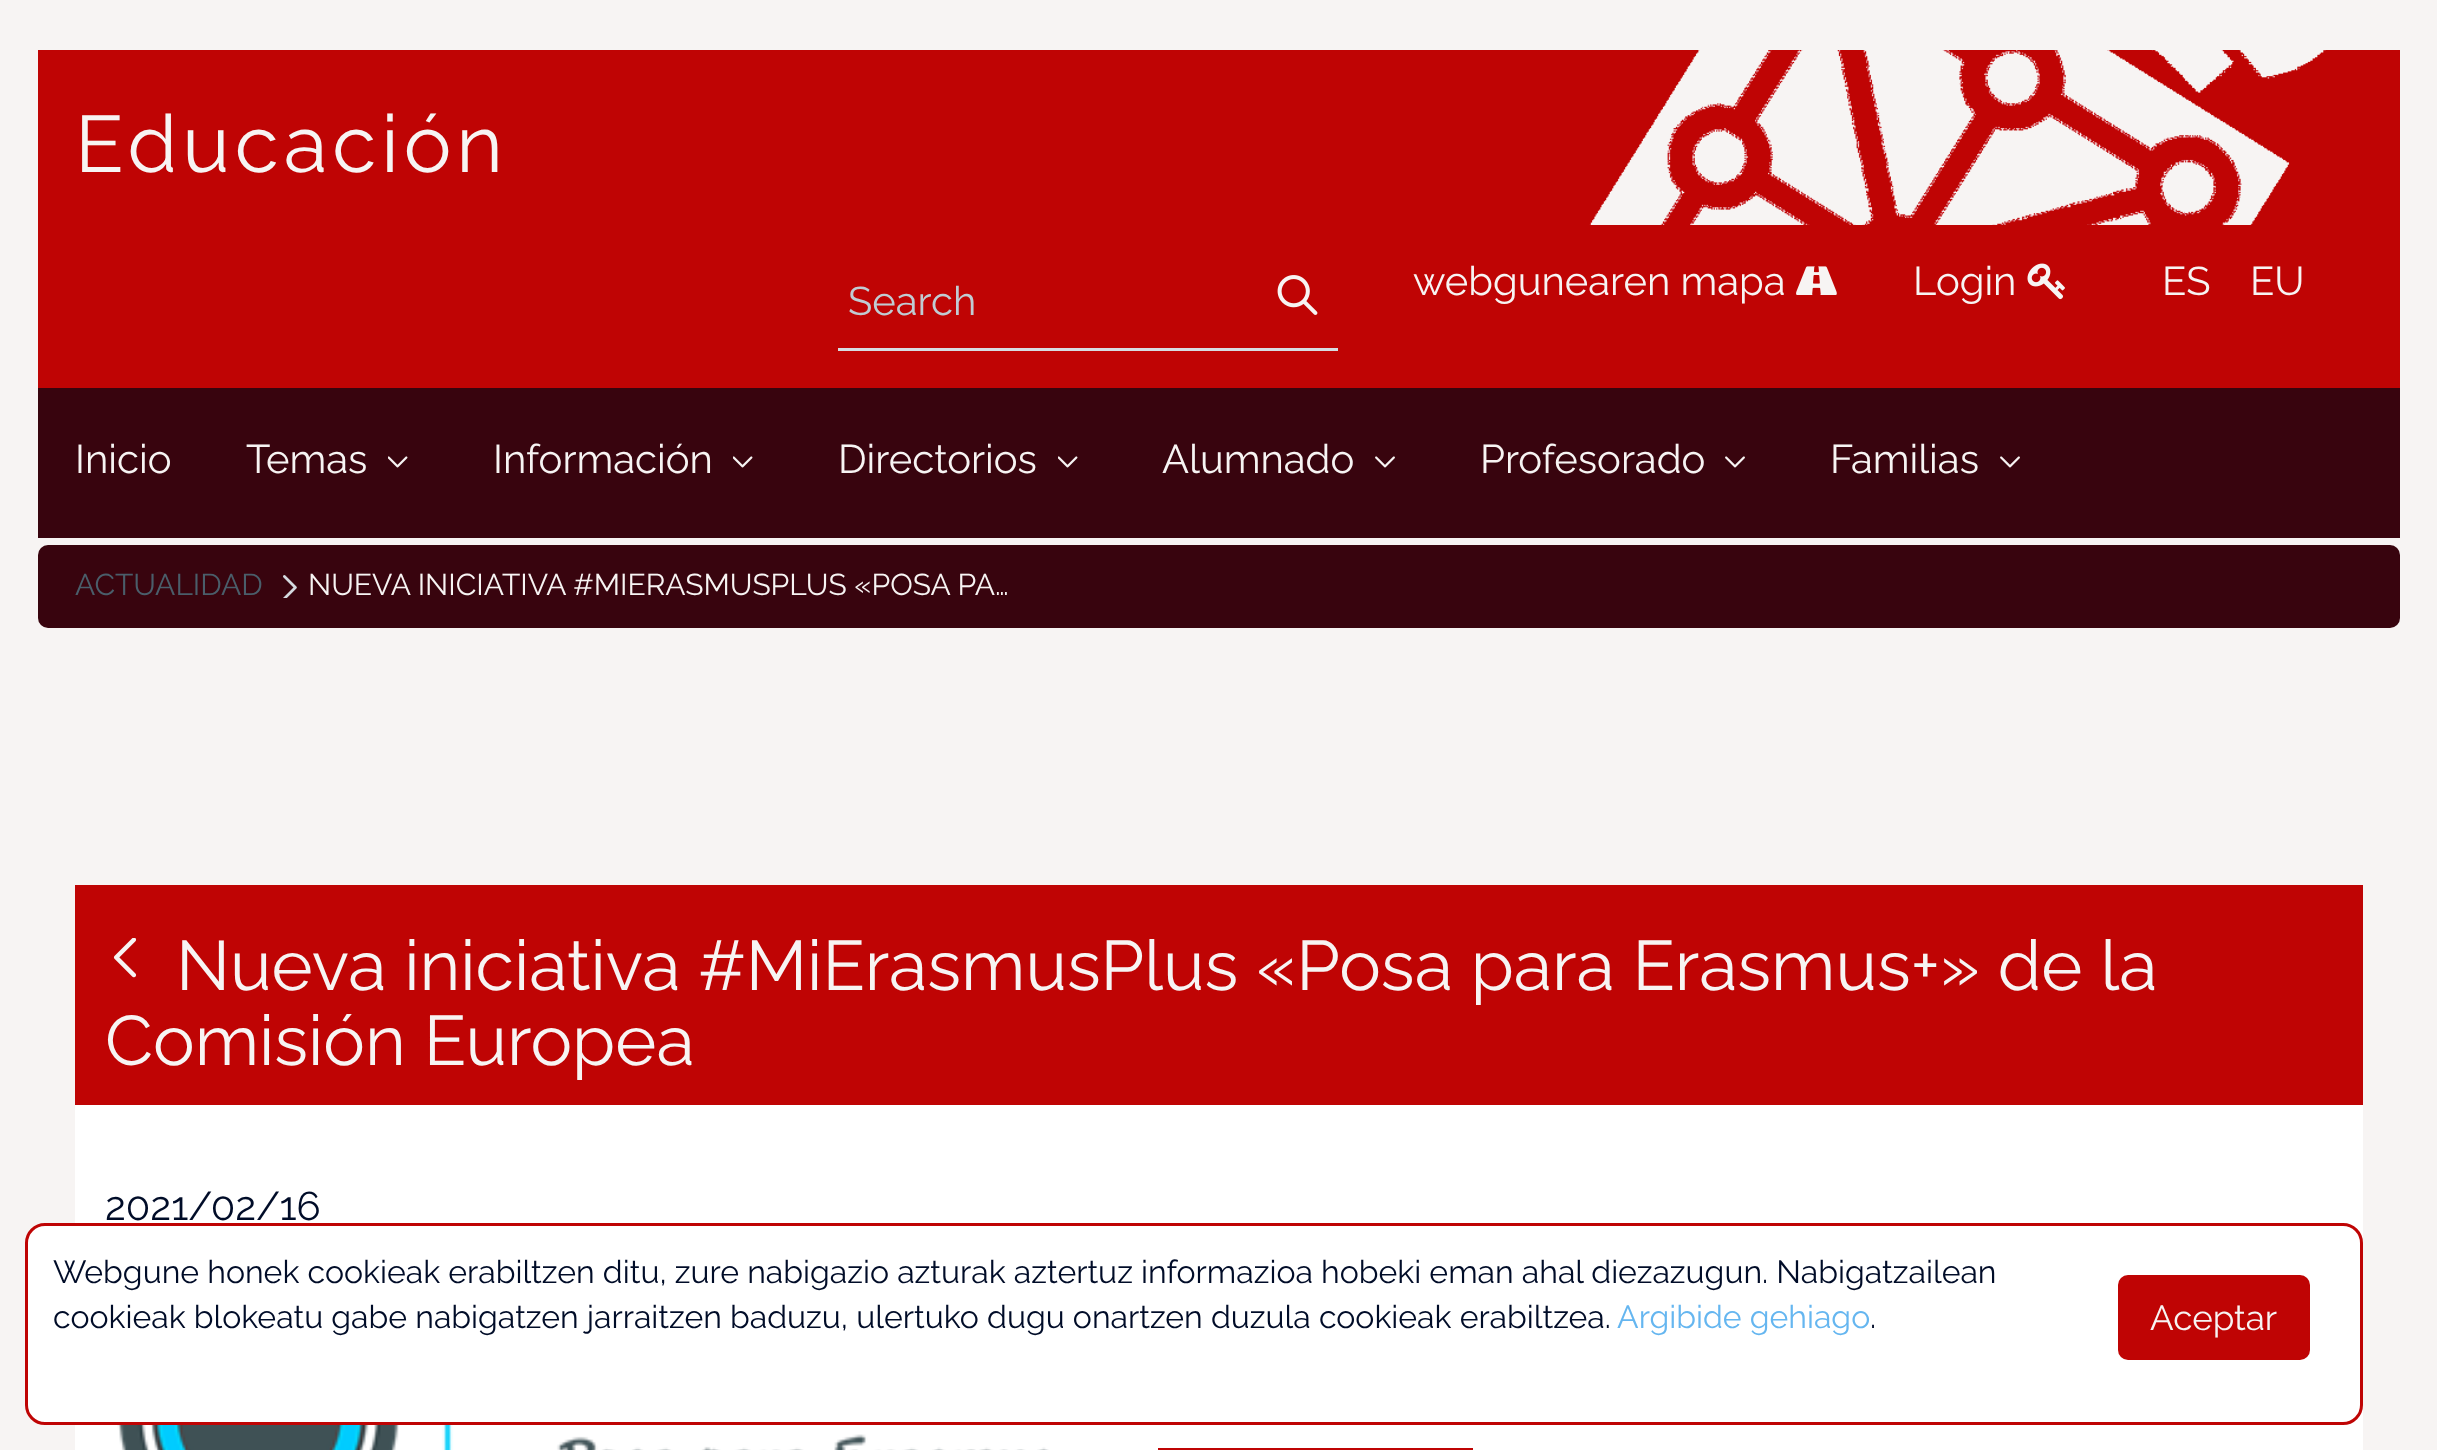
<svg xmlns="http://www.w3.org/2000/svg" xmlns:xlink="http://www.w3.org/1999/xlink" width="2437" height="1450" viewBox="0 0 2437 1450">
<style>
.cls-1{font:100 80px Raleway;letter-spacing:5px;fill:#f7f4f3}
.cls-2{font:100 40px Raleway;fill:#f7f4f3}
.cls-3{font:100 40px Raleway;fill:#c0ccd3}
.cls-4{font:100 30px Raleway;fill:#4a5e6a}
.cls-5{font:100 30px Raleway;fill:#f7f4f3}
.cls-6{font:100 70px Raleway;fill:#f7f4f3}
.cls-7{font:100 40px Raleway;fill:#000c28}
.cls-8{font:100 32px Raleway;fill:#000c28}
.cls-9{font:100 32px Raleway;fill:#65b6f0}
.cls-10{font:100 35px Raleway;fill:#f7f4f3}
</style>
<rect width="100%" height="100%" fill="#f7f4f3"/>
<rect fill="#bf0404" x="38" y="50" width="2362" height="338"/>
<image xlink:href="image0.png" x="1589" y="50" width="737" height="175"/>
<image xlink:href="image1.png" x="1796" y="266" width="41" height="29"/>
<image xlink:href="image2.png" x="2027" y="263" width="38" height="37"/>
<rect fill="#d6dce2" x="838" y="348" width="500" height="3"/>
<image xlink:href="image3.png" x="1277" y="275" width="41" height="40"/>
<rect fill="#38040e" x="38" y="388" width="2362" height="150"/>
<image xlink:href="image4.png" x="388" y="456" width="20" height="12"/>
<image xlink:href="image4.png" x="733" y="456" width="20" height="12"/>
<image xlink:href="image4.png" x="1058" y="456" width="20" height="12"/>
<image xlink:href="image5.png" x="1375" y="456" width="20" height="12"/>
<image xlink:href="image5.png" x="1725" y="456" width="20" height="12"/>
<image xlink:href="image5.png" x="2000" y="456" width="20" height="12"/>
<rect fill="#38040e" x="38" y="545" width="2362" height="83" rx="10"/>
<image xlink:href="image6.png" x="283" y="575" width="14" height="23"/>
<rect fill="#ffffff" x="75" y="1105" width="2288" height="345"/>
<rect fill="#bf0404" x="75" y="885" width="2288" height="220"/>
<image xlink:href="image7.png" x="113" y="938" width="24" height="40"/>
<image xlink:href="image8.png" x="117" y="1425" width="932" height="25"/>
<rect fill="#bf0404" x="1158" y="1448" width="315" height="2"/>
<rect fill="#ffffff" stroke="#bf0404" stroke-width="3" x="26.5" y="1224.5" width="2335" height="199" rx="18.5"/>
<rect fill="#bf0404" x="2118" y="1275" width="192" height="85" rx="10"/>
<text class="cls-1" x="75" y="172">Educación</text>
<text class="cls-2" x="1413" y="295">webgunearen mapa</text>
<text class="cls-2" x="1913" y="295">Login</text>
<text class="cls-2" x="2162" y="295">ES</text>
<text class="cls-2" x="2250" y="295">EU</text>
<text class="cls-3" x="848" y="315">Search</text>
<text class="cls-2" x="75" y="473">Inicio</text>
<text class="cls-2" x="246" y="473">Temas</text>
<text class="cls-2" x="493" y="473">Información</text>
<text class="cls-2" x="838" y="473">Directorios</text>
<text class="cls-2" x="1162" y="473">Alumnado</text>
<text class="cls-2" x="1480" y="473">Profesorado</text>
<text class="cls-2" x="1830" y="473">Familias</text>
<text class="cls-4" x="75" y="595">ACTUALIDAD</text>
<text class="cls-5" x="308" y="595">NUEVA INICIATIVA #MIERASMUSPLUS «POSA PA…</text>
<text class="cls-6" x="176" y="990">Nueva iniciativa #MiErasmusPlus «Posa para Erasmus+» de la</text>
<text class="cls-6" x="105" y="1065">Comisión Europea</text>
<text class="cls-7" x="105" y="1220">2021/02/16</text>
<text class="cls-8"><tspan x="53" y="1283">Webgune honek cookieak erabiltzen ditu, zure nabigazio azturak aztertuz informazioa hobeki eman ahal diezazugun. Nabigatzailean</tspan><tspan x="53" y="1328">cookieak blokeatu gabe nabigatzen jarraitzen baduzu, ulertuko dugu onartzen duzula cookieak erabiltzea.</tspan></text>
<text class="cls-9" x="1617" y="1328">Argibide gehiago</text>
<text class="cls-8" x="1870" y="1328">.</text>
<text class="cls-10" x="2150" y="1330">Aceptar</text>
</svg>
